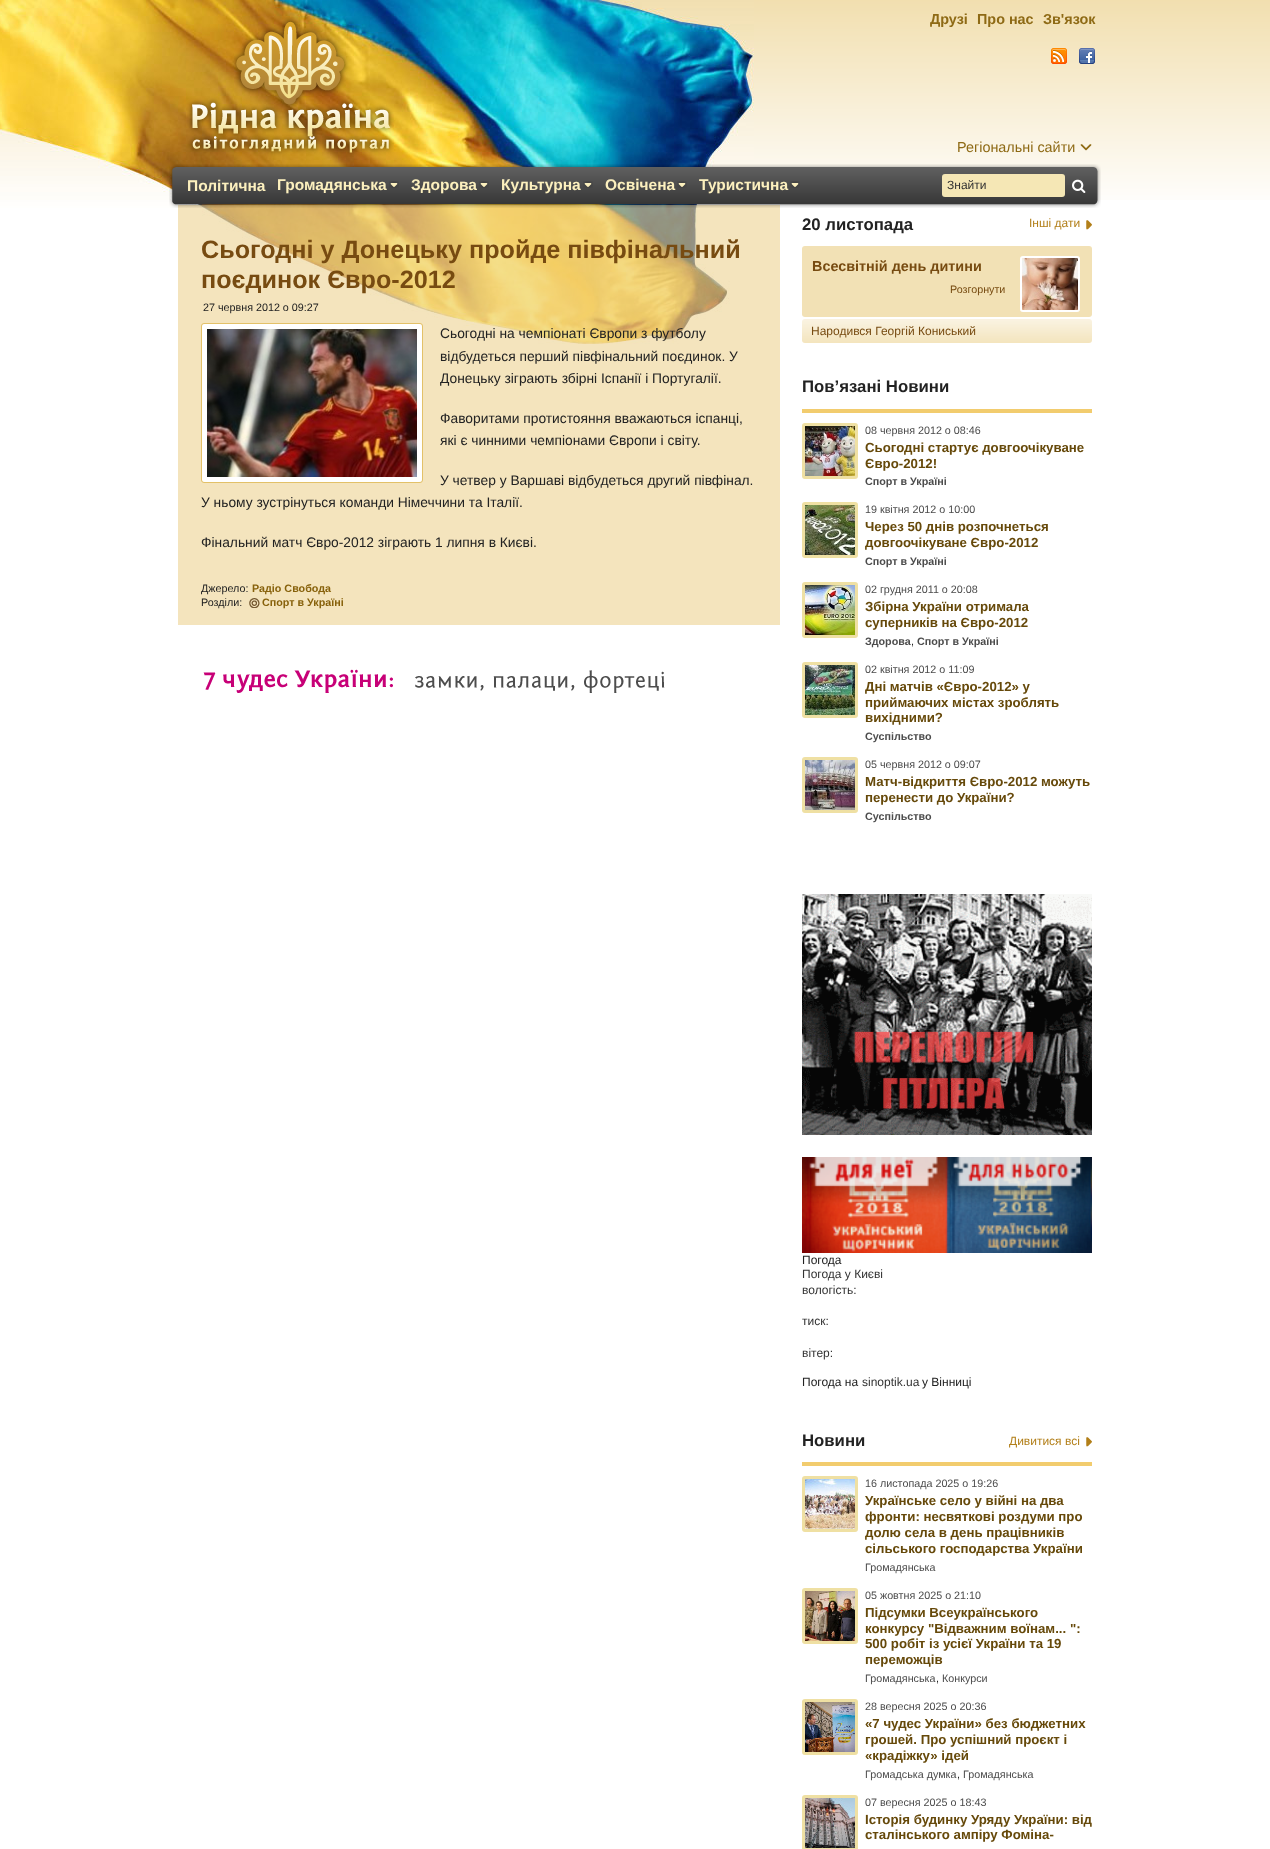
<svg xmlns="http://www.w3.org/2000/svg" xmlns:xlink="http://www.w3.org/1999/xlink" width="1270" height="1849" viewBox="0 0 1270 1849">
<style>
.cls-1{font:bold 14.4px Liberation Sans;fill:#8e6a15}
.cls-2{font:14.4px Liberation Sans;fill:#8e6a15}
.cls-3{font:bold 15.5px Liberation Sans;fill:#fcf0be}
.cls-4{font:12px Liberation Sans;fill:#333333}
.cls-5{font:bold 25.2px Liberation Sans;fill:#774b11}
.cls-6{font:10.75px Liberation Sans;fill:#222222}
.cls-7{font:13.8px Liberation Sans;fill:#222222}
.cls-8{font:bold 10.75px Liberation Sans;fill:#87610b}
.cls-9{font:bold 16.75px Liberation Sans;fill:#222222}
.cls-10{font:12px Liberation Sans;fill:#b27f19}
.cls-11{font:bold 14.4px Liberation Sans;fill:#774b11}
.cls-12{font:10.75px Liberation Sans;fill:#774b11}
.cls-13{font:12px Liberation Sans;fill:#774b11}
.cls-14{font:10.75px Liberation Sans;fill:#4c4c4c}
.cls-15{font:bold 13.25px Liberation Sans;fill:#66490a}
.cls-16{font:bold 10.75px Liberation Sans;fill:#4c4c4c}
.cls-17{font:12px Liberation Sans;fill:#222222}
</style>
<rect width="100%" height="100%" fill="#ffffff"/>
<image xlink:href="image0.png" x="754" y="0" width="516" height="200"/>
<image xlink:href="image1.png" x="0" y="0" width="754" height="344"/>
<image xlink:href="image2.png" x="187" y="17" width="207" height="140"/>
<image xlink:href="image3.png" x="1051" y="48" width="16" height="16"/>
<image xlink:href="image4.png" x="1079" y="48" width="16" height="16"/>
<image xlink:href="image5.png" x="1080" y="144" width="12" height="7"/>
<rect fill="#edd394" fill-opacity="0.62" x="178" y="205" width="602" height="420"/>
<image xlink:href="image6.png" x="169" y="164" width="932" height="44"/>
<image xlink:href="image7.png" x="389" y="181" width="10" height="7"/>
<image xlink:href="image7.png" x="479" y="181" width="10" height="7"/>
<image xlink:href="image7.png" x="583" y="181" width="10" height="7"/>
<image xlink:href="image7.png" x="677" y="181" width="10" height="7"/>
<image xlink:href="image7.png" x="790" y="181" width="10" height="7"/>
<rect fill="#f5e7b5" x="942" y="174" width="123" height="23" rx="3"/>
<image xlink:href="image8.png" x="1072" y="179" width="14" height="14"/>
<rect fill="none" stroke="#e3c168" x="201.5" y="323.5" width="221" height="159" rx="2.5"/>
<rect fill="none" stroke="#ffffff" stroke-width="5" x="204.5" y="326.5" width="215" height="153" rx="0.5"/>
<image xlink:href="image9.png" x="207" y="329" width="210" height="148"/>
<image xlink:href="image10.png" x="249" y="598" width="11" height="10"/>
<image xlink:href="image11.png" x="203" y="669" width="462" height="24"/>
<image xlink:href="image12.png" x="1086" y="220" width="6" height="10"/>
<rect fill="#f2e1b5" x="802" y="246" width="290" height="71" rx="3"/>
<rect fill="none" stroke="#ffffff" stroke-width="2" x="1021" y="257" width="58" height="54" rx="2"/>
<image xlink:href="image13.png" x="1022" y="258" width="56" height="52"/>
<image xlink:href="image14.png" x="802" y="319" width="290" height="24"/>
<rect fill="#f2cc6e" x="802" y="409" width="290" height="4"/>
<rect fill="none" stroke="#efe0a3" stroke-width="3" x="803.5" y="424.5" width="53" height="53" rx="1.5"/>
<image xlink:href="image15.png" x="805" y="426" width="50" height="50"/>
<rect fill="none" stroke="#efe0a3" stroke-width="3" x="803.5" y="503.5" width="53" height="53" rx="1.5"/>
<image xlink:href="image16.png" x="805" y="505" width="50" height="50"/>
<rect fill="none" stroke="#efe0a3" stroke-width="3" x="803.5" y="583.5" width="53" height="53" rx="1.5"/>
<image xlink:href="image17.png" x="805" y="585" width="50" height="50"/>
<rect fill="none" stroke="#efe0a3" stroke-width="3" x="803.5" y="663.5" width="53" height="53" rx="1.5"/>
<image xlink:href="image18.png" x="805" y="665" width="50" height="50"/>
<rect fill="none" stroke="#efe0a3" stroke-width="3" x="803.5" y="758.5" width="53" height="53" rx="1.5"/>
<image xlink:href="image19.png" x="805" y="760" width="50" height="50"/>
<image xlink:href="image20.png" x="802" y="894" width="290" height="241"/>
<image xlink:href="image21.png" x="802" y="1157" width="290" height="96"/>
<rect fill="#f2cc6e" x="802" y="1462" width="290" height="4"/>
<image xlink:href="image12.png" x="1086" y="1437" width="6" height="10"/>
<rect fill="none" stroke="#efe0a3" stroke-width="3" x="803.5" y="1477.5" width="53" height="53" rx="1.5"/>
<image xlink:href="image22.png" x="805" y="1479" width="50" height="50"/>
<rect fill="none" stroke="#efe0a3" stroke-width="3" x="803.5" y="1589.5" width="53" height="53" rx="1.5"/>
<image xlink:href="image23.png" x="805" y="1591" width="50" height="50"/>
<rect fill="none" stroke="#efe0a3" stroke-width="3" x="803.5" y="1700.5" width="53" height="53" rx="1.5"/>
<image xlink:href="image24.png" x="805" y="1702" width="50" height="50"/>
<rect fill="none" stroke="#efe0a3" stroke-width="3" x="803.5" y="1796.5" width="53" height="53" rx="1.5"/>
<image xlink:href="image25.png" x="805" y="1798" width="50" height="50"/>
<text class="cls-1" x="930" y="24">Друзі</text>
<text class="cls-1" x="977" y="24">Про нас</text>
<text class="cls-1" x="1043" y="24">Зв'язок</text>
<text class="cls-2" x="957" y="152">Регіональні сайти</text>
<text class="cls-3" x="187" y="191">Політична</text>
<text class="cls-3" x="277" y="190">Громадянська</text>
<text class="cls-3" x="411" y="190">Здорова</text>
<text class="cls-3" x="501" y="190">Культурна</text>
<text class="cls-3" x="605" y="190">Освічена</text>
<text class="cls-3" x="699" y="190">Туристична</text>
<text class="cls-4" x="947" y="189">Знайти</text>
<text class="cls-5"><tspan x="201" y="258">Сьогодні у Донецьку пройде півфінальний</tspan><tspan x="201" y="288">поєдинок Євро-2012</tspan></text>
<text class="cls-6" x="203" y="311">27 червня 2012 о 09:27</text>
<text class="cls-7"><tspan x="440" y="338">Сьогодні на чемпіонаті Європи з футболу</tspan><tspan x="440" y="361">відбудеться перший півфінальний поєдинок. У</tspan><tspan x="440" y="383">Донецьку зіграють збірні Іспанії і Португалії.</tspan></text>
<text class="cls-7"><tspan x="440" y="423">Фаворитами протистояння вважаються іспанці,</tspan><tspan x="440" y="445">які є чинними чемпіонами Європи і світу.</tspan></text>
<text class="cls-7" x="440" y="485">У четвер у Варшаві відбудеться другий півфінал.</text>
<text class="cls-7" x="201" y="507">У ньому зустрінуться команди Німеччини та Італії.</text>
<text class="cls-7" x="201" y="547">Фінальний матч Євро-2012 зіграють 1 липня в Києві.</text>
<text class="cls-6" x="201" y="592">Джерело:</text>
<text class="cls-8" x="252" y="592">Радіо Свобода</text>
<text class="cls-6" x="201" y="606">Розділи:</text>
<text class="cls-8" x="262" y="606">Спорт в Україні</text>
<text class="cls-9" x="802" y="230">20 листопада</text>
<text class="cls-10" x="1029" y="227">Інші дати</text>
<text class="cls-11" x="812" y="271">Всесвітній день дитини</text>
<text class="cls-12" x="950" y="293">Розгорнути</text>
<text class="cls-13" x="811" y="335">Народився Георгій Кониський</text>
<text class="cls-9" x="802" y="392">Пов’язані Новини</text>
<text class="cls-14" x="865" y="434">08 червня 2012 о 08:46</text>
<text class="cls-15"><tspan x="865" y="452">Сьогодні стартує довгоочікуване</tspan><tspan x="865" y="468">Євро-2012!</tspan></text>
<text class="cls-16" x="865" y="485">Спорт в Україні</text>
<text class="cls-14" x="865" y="513">19 квітня 2012 о 10:00</text>
<text class="cls-15"><tspan x="865" y="531">Через 50 днів розпочнеться</tspan><tspan x="865" y="547">довгоочікуване Євро-2012</tspan></text>
<text class="cls-16" x="865" y="565">Спорт в Україні</text>
<text class="cls-14" x="865" y="593">02 грудня 2011 о 20:08</text>
<text class="cls-15"><tspan x="865" y="611">Збірна України отримала</tspan><tspan x="865" y="627">суперників на Євро-2012</tspan></text>
<text class="cls-16" x="865" y="645">Здорова</text>
<text class="cls-6" x="911" y="645">,</text>
<text class="cls-16" x="917" y="645">Спорт в Україні</text>
<text class="cls-14" x="865" y="673">02 квітня 2012 о 11:09</text>
<text class="cls-15"><tspan x="865" y="691">Дні матчів «Євро-2012» у</tspan><tspan x="865" y="707">приймаючих містах зроблять</tspan><tspan x="865" y="722">вихідними?</tspan></text>
<text class="cls-16" x="865" y="740">Суспільство</text>
<text class="cls-14" x="865" y="768">05 червня 2012 о 09:07</text>
<text class="cls-15"><tspan x="865" y="786">Матч-відкриття Євро-2012 можуть</tspan><tspan x="865" y="802">перенести до України?</tspan></text>
<text class="cls-16" x="865" y="820">Суспільство</text>
<text class="cls-17" x="802" y="1264">Погода</text>
<text class="cls-4"><tspan x="802" y="1278">Погода у Києві</tspan><tspan x="802" y="1294">вологість:</tspan></text>
<text class="cls-4" x="802" y="1325">тиск:</text>
<text class="cls-4" x="802" y="1357">вітер:</text>
<text class="cls-17" x="802" y="1386">Погода на</text>
<text class="cls-4" x="862" y="1386">sinoptik.ua</text>
<text class="cls-17" x="922" y="1386">у Вінниці</text>
<text class="cls-9" x="802" y="1446">Новини</text>
<text class="cls-10" x="1009" y="1445">Дивитися всі</text>
<text class="cls-14" x="865" y="1487">16 листопада 2025 о 19:26</text>
<text class="cls-15"><tspan x="865" y="1505">Українське село у війні на два</tspan><tspan x="865" y="1521">фронти: несвяткові роздуми про</tspan><tspan x="865" y="1537">долю села в день працівників</tspan><tspan x="865" y="1553">сільського господарства України</tspan></text>
<text class="cls-14" x="865" y="1571">Громадянська</text>
<text class="cls-14" x="865" y="1599">05 жовтня 2025 о 21:10</text>
<text class="cls-15"><tspan x="865" y="1617">Підсумки Всеукраїнського</tspan><tspan x="865" y="1633">конкурсу "Відважним воїнам... ":</tspan><tspan x="865" y="1648">500 робіт із усієї України та 19</tspan><tspan x="865" y="1664">переможців</tspan></text>
<text class="cls-14" x="865" y="1682">Громадянська</text>
<text class="cls-6" x="936" y="1682">,</text>
<text class="cls-14" x="942" y="1682">Конкурси</text>
<text class="cls-14" x="865" y="1710">28 вересня 2025 о 20:36</text>
<text class="cls-15"><tspan x="865" y="1728">«7 чудес України» без бюджетних</tspan><tspan x="865" y="1744">грошей. Про успішний проєкт і</tspan><tspan x="865" y="1760">«крадіжку» ідей</tspan></text>
<text class="cls-14" x="865" y="1778">Громадська думка</text>
<text class="cls-6" x="957" y="1778">,</text>
<text class="cls-14" x="963" y="1778">Громадянська</text>
<text class="cls-14" x="865" y="1806">07 вересня 2025 о 18:43</text>
<text class="cls-15"><tspan x="865" y="1824">Історія будинку Уряду України: від</tspan><tspan x="865" y="1839">сталінського ампіру Фоміна-</tspan></text>
</svg>
